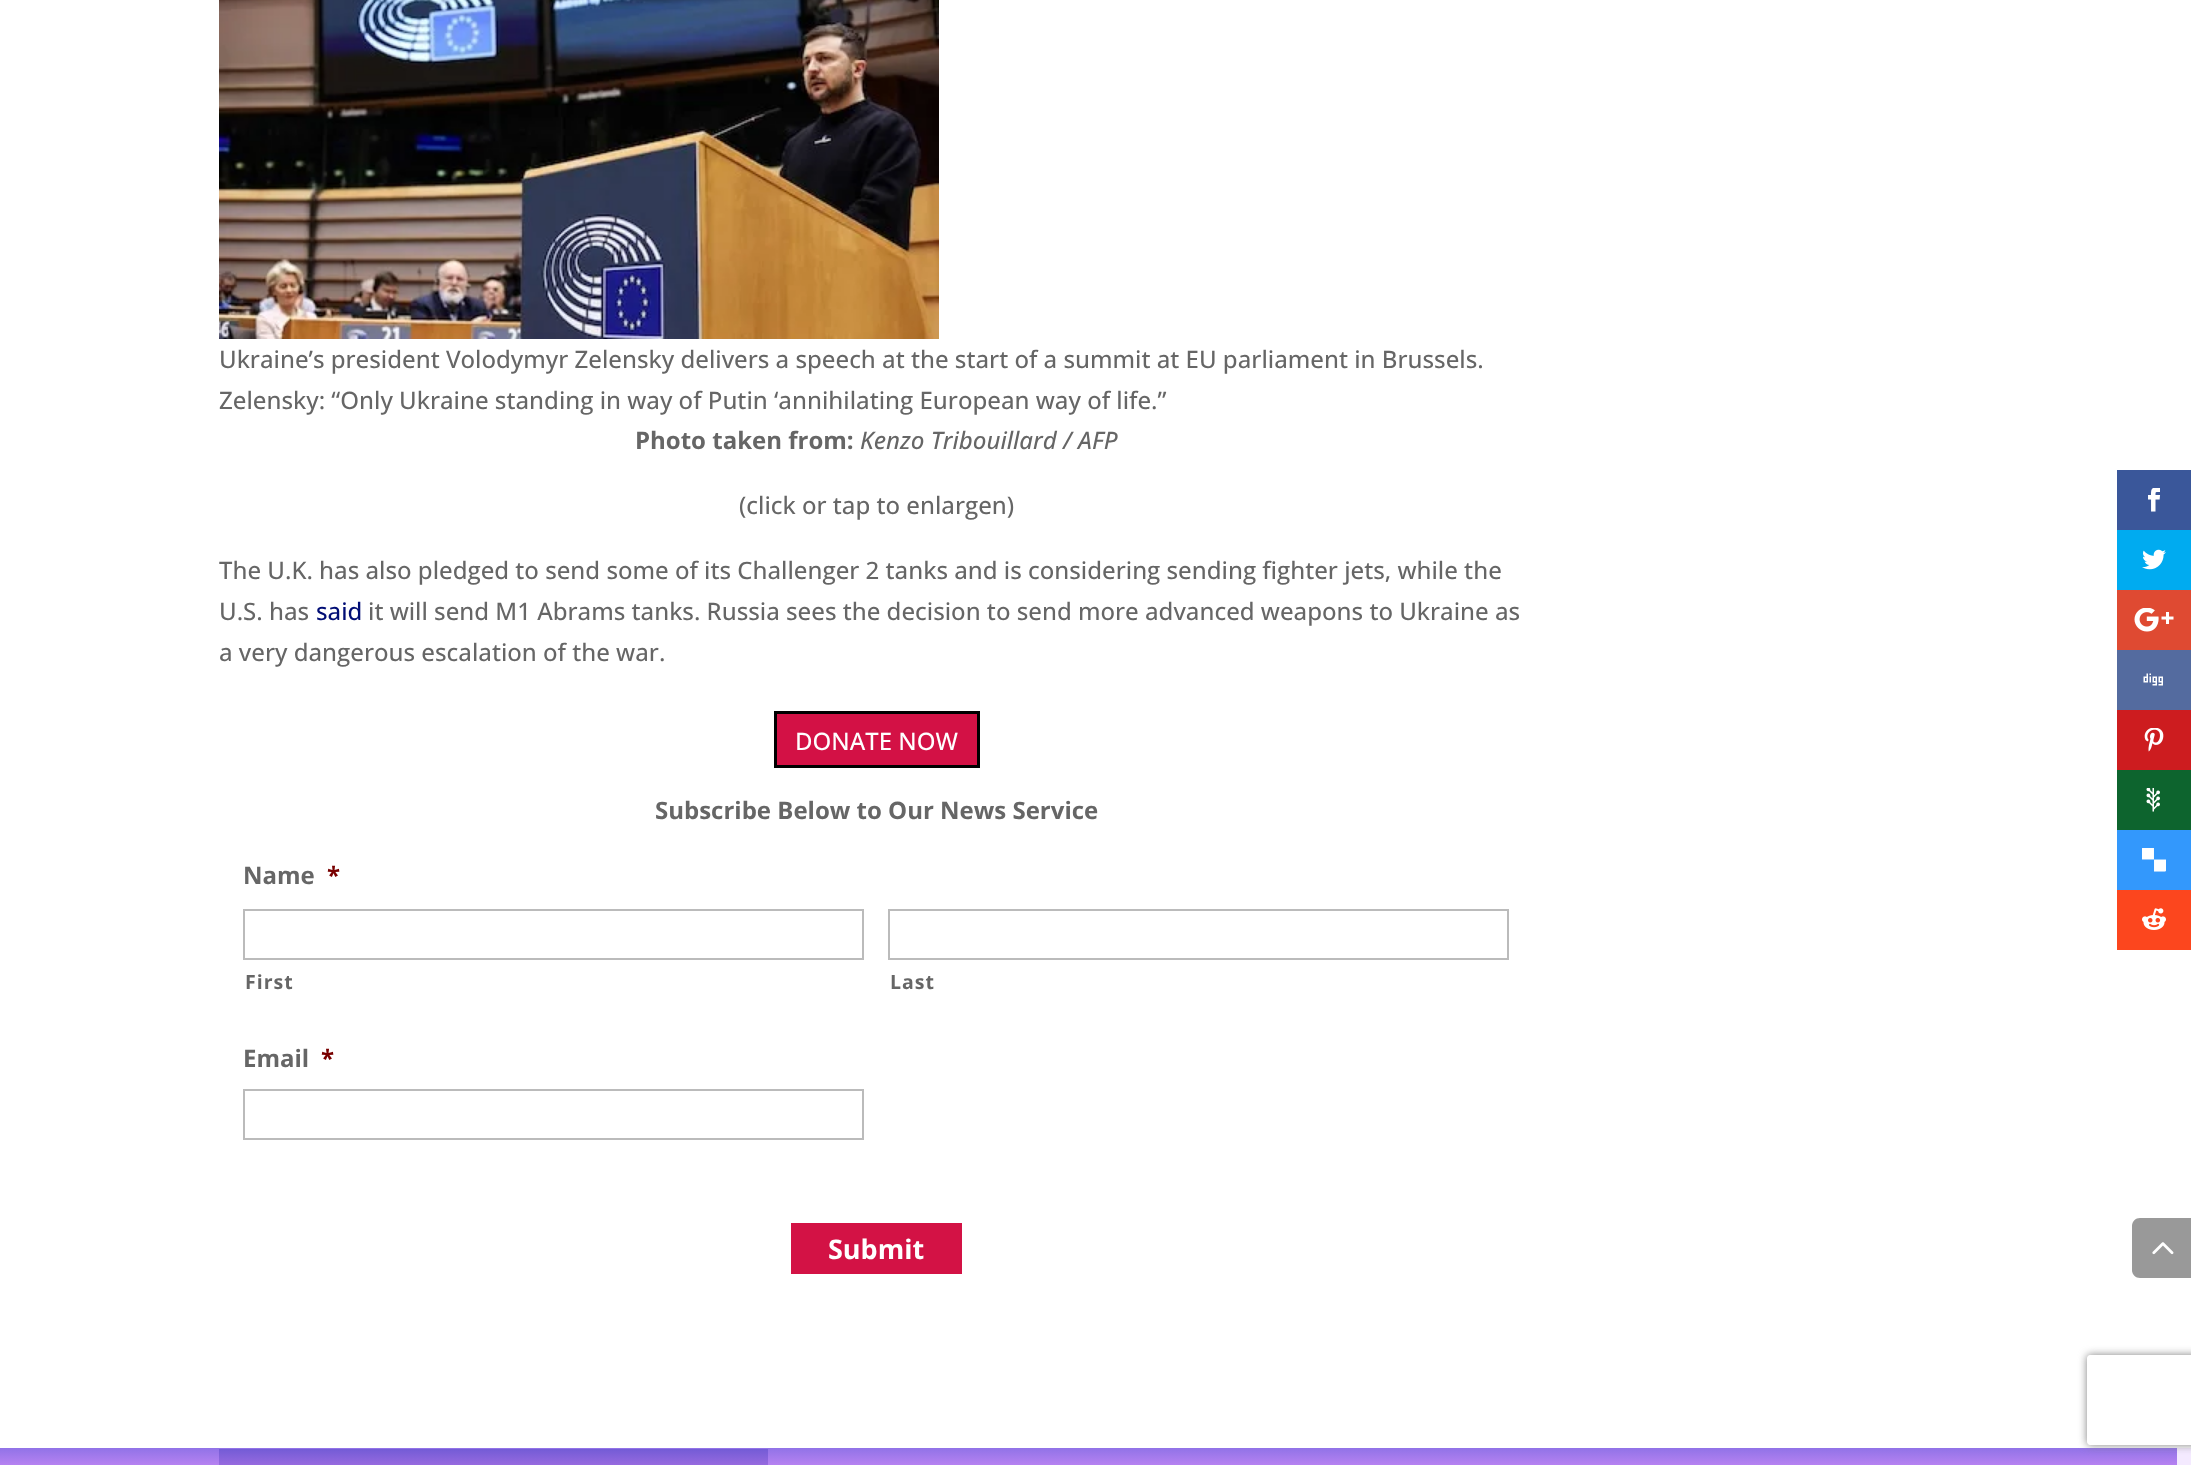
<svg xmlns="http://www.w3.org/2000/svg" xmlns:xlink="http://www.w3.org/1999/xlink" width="2191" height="1465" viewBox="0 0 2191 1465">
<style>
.cls-1{font:500 24px Open Sans;fill:#666666}
.cls-2{font:bold 24px Open Sans;fill:#666666}
.cls-3{font:italic 500 24px Open Sans;fill:#666666}
.cls-4{font:500 24px Open Sans;fill:#000d75}
.cls-5{font:500 24px Open Sans;fill:#ffffff}
.cls-6{font:bold 24px Open Sans;fill:#790000}
.cls-7{font:bold 19.5px Open Sans;letter-spacing:1px;fill:#666666}
.cls-8{font:bold 27px Open Sans;fill:#ffffff}
</style>
<defs>
<linearGradient id="g1" gradientUnits="userSpaceOnUse" x1="1088" y1="1439" x2="1088" y2="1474"><stop offset="0" stop-color="#5540d9" stop-opacity="0.5"/><stop offset="1" stop-color="#ee7fff" stop-opacity="0.5"/></linearGradient>
<clipPath id="clip1"><path d="M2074 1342H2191V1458H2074ZM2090 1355H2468C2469.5 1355 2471 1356.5 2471 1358V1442C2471 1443.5 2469.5 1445 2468 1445H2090C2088.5 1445 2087 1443.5 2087 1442V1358C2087 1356.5 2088.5 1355 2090 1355Z" clip-rule="evenodd"/></clipPath>
</defs>
<rect width="100%" height="100%" fill="#ffffff"/>
<rect fill="#f4eaff" x="2177" y="1448" width="14" height="17"/>
<rect fill="#a595ec" x="0" y="1448" width="2177" height="17"/>
<image xlink:href="image0.png" x="219" y="0" width="720" height="339"/>
<rect fill="#d31145" stroke="#000000" stroke-width="3" x="775.5" y="712.5" width="203" height="54"/>
<rect fill="none" stroke="#bbbbbb" stroke-width="2" x="244" y="910" width="619" height="49"/>
<rect fill="none" stroke="#bbbbbb" stroke-width="2" x="889" y="910" width="619" height="49"/>
<rect fill="none" stroke="#bbbbbb" stroke-width="2" x="244" y="1090" width="619" height="49"/>
<rect fill="#d31245" x="791" y="1223" width="171" height="51"/>
<rect fill="#6665c8" x="219" y="1449" width="549" height="16"/>
<rect fill="#3a579a" x="2117" y="470" width="74" height="60"/>
<image xlink:href="image1.png" x="2148" y="488" width="13" height="24"/>
<rect fill="#00abf0" x="2117" y="530" width="74" height="60"/>
<image xlink:href="image2.png" x="2142" y="549" width="24" height="21"/>
<rect fill="#df4a32" x="2117" y="590" width="74" height="60"/>
<image xlink:href="image3.png" x="2134" y="608" width="40" height="24"/>
<rect fill="#546b9f" x="2117" y="650" width="74" height="60"/>
<image xlink:href="image4.png" x="2143" y="673" width="20" height="13"/>
<rect fill="#cd1c1f" x="2117" y="710" width="74" height="60"/>
<image xlink:href="image5.png" x="2144" y="728" width="20" height="24"/>
<rect fill="#0d642e" x="2117" y="770" width="74" height="60"/>
<image xlink:href="image6.png" x="2146" y="788" width="14" height="24"/>
<rect fill="#3398fc" x="2117" y="830" width="74" height="60"/>
<image xlink:href="image7.png" x="2142" y="848" width="24" height="24"/>
<rect fill="#fc461e" x="2117" y="890" width="74" height="60"/>
<image xlink:href="image8.png" x="2142" y="908" width="24" height="22"/>
<path fill="#999999" d="M2140 1218H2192V1278H2140C2135.5 1278 2132 1274.5 2132 1270V1226C2132 1221.5 2135.5 1218 2140 1218Z"/>
<image xlink:href="image9.png" x="2152" y="1242" width="22" height="13"/>
<rect fill="url(#g1)" x="0" y="1448" width="2177" height="17"/>
<g clip-path="url(#clip1)">
<rect fill="#808080" filter="blur(4px)" x="2087" y="1355" width="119" height="90" rx="3"/>
</g>
<text class="cls-1"><tspan x="219" y="368">Ukraine’s president Volodymyr Zelensky delivers a speech at the start of a summit at EU parliament in Brussels.</tspan><tspan x="219" y="409">Zelensky: “Only Ukraine standing in way of Putin ‘annihilating European way of life.”</tspan></text>
<text class="cls-2" x="635" y="449">Photo taken from:</text>
<text class="cls-3" x="860" y="449">Kenzo Tribouillard / AFP</text>
<text class="cls-1" x="739" y="514">(click or tap to enlargen)</text>
<text class="cls-1"><tspan x="219" y="579">The U.K. has also pledged to send some of its Challenger 2 tanks and is considering sending fighter jets, while the</tspan><tspan x="219" y="620">U.S. has</tspan></text>
<text class="cls-4" x="316" y="620">said</text>
<text class="cls-1" x="368" y="620">it will send M1 Abrams tanks. Russia sees the decision to send more advanced weapons to Ukraine as</text>
<text class="cls-1" x="219" y="661">a very dangerous escalation of the war.</text>
<text class="cls-5" x="795" y="750">DONATE NOW</text>
<text class="cls-2" x="655" y="819">Subscribe Below to Our News Service</text>
<text class="cls-2" x="243" y="884">Name</text>
<text class="cls-6" x="327" y="884">*</text>
<text class="cls-7" x="245" y="989">First</text>
<text class="cls-7" x="890" y="989">Last</text>
<text class="cls-2" x="243" y="1067">Email</text>
<text class="cls-6" x="321" y="1067">*</text>
<text class="cls-8" x="828" y="1259">Submit</text>
</svg>
